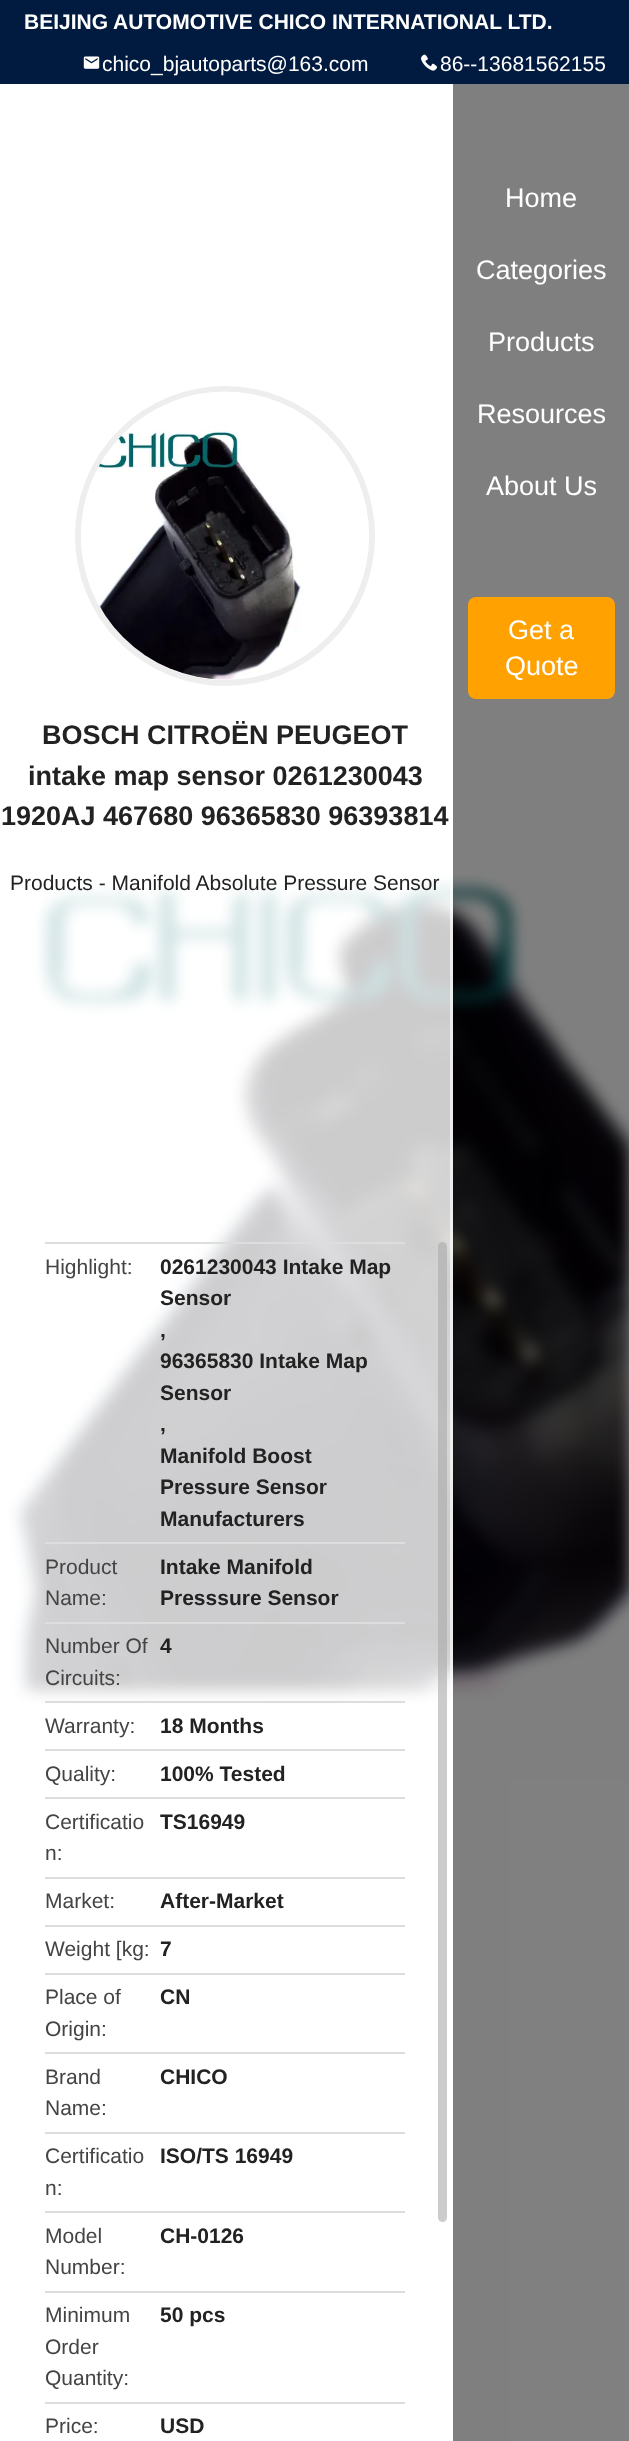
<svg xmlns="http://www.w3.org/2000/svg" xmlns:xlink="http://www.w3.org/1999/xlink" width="629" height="2441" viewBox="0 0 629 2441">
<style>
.cls-1{font:bold 21px Liberation Sans;fill:#ffffff}
.cls-2{font:21px Liberation Sans;fill:#ffffff}
.cls-3{font:27px Liberation Sans;fill:#ffffff}
.cls-4{font:bold 27px Liberation Sans;fill:#222222}
.cls-5{font:21px Liberation Sans;fill:#222222}
.cls-6{font:21px Liberation Sans;fill:#444444}
.cls-7{font:bold 21px Liberation Sans;fill:#222222}
</style>
<rect width="100%" height="100%" fill="#ffffff"/>
<rect fill="#001b3f" x="0" y="0" width="629" height="84"/>
<image xlink:href="image0.png" x="83" y="56" width="17" height="13"/>
<image xlink:href="image1.png" x="421" y="54" width="16" height="17"/>
<image xlink:href="image3.png" x="6" y="874" width="623" height="831"/>
<rect fill="#000000" fill-opacity="0.5" x="453" y="84" width="176" height="2357"/>
<rect fill="#ffa100" x="468" y="597" width="147" height="102" rx="8"/>
<rect fill="#ffffff" fill-opacity="0.8" x="6" y="874" width="447" height="831"/>
<rect fill="#ffffff" fill-opacity="0.6" x="450" y="879" width="3" height="811"/>
<circle fill="none" stroke="#eeeeee" stroke-width="6" cx="225" cy="536" r="147"/>
<image xlink:href="image2.png" x="81" y="391" width="288" height="289"/>
<rect fill="#dddddd" x="45" y="1242" width="360" height="2"/>
<rect fill="#dddddd" x="45" y="1542" width="360" height="2"/>
<rect fill="#dddddd" x="45" y="1622" width="360" height="2"/>
<rect fill="#dddddd" x="45" y="1701" width="360" height="2"/>
<rect fill="#dddddd" x="45" y="1749" width="360" height="2"/>
<rect fill="#dddddd" x="45" y="1797" width="360" height="2"/>
<rect fill="#dddddd" x="45" y="1877" width="360" height="2"/>
<rect fill="#dddddd" x="45" y="1925" width="360" height="2"/>
<rect fill="#dddddd" x="45" y="1973" width="360" height="2"/>
<rect fill="#dddddd" x="45" y="2052" width="360" height="2"/>
<rect fill="#dddddd" x="45" y="2132" width="360" height="2"/>
<rect fill="#dddddd" x="45" y="2211" width="360" height="2"/>
<rect fill="#dddddd" x="45" y="2291" width="360" height="2"/>
<rect fill="#dddddd" x="45" y="2402" width="360" height="2"/>
<rect fill="#aaaaaa" fill-opacity="0.6" x="438" y="1242" width="9" height="980" rx="4.5"/>
<text class="cls-1" x="24" y="29">BEIJING AUTOMOTIVE CHICO INTERNATIONAL LTD.</text>
<text class="cls-2" x="102" y="71">chico_bjautoparts@163.com</text>
<text class="cls-2" x="440" y="71">86--13681562155</text>
<text class="cls-3" x="505" y="207">Home</text>
<text class="cls-3" x="476" y="279">Categories</text>
<text class="cls-3" x="488" y="351">Products</text>
<text class="cls-3" x="477" y="423">Resources</text>
<text class="cls-3" x="486" y="495">About Us</text>
<text class="cls-3" x="508" y="639">Get a</text>
<text class="cls-3" x="505" y="675">Quote</text>
<text class="cls-4" x="42" y="744">BOSCH CITROËN PEUGEOT</text>
<text class="cls-4" x="28" y="785">intake map sensor 0261230043</text>
<text class="cls-4" x="1" y="825">1920AJ 467680 96365830 96393814</text>
<text class="cls-5" x="10" y="890">Products - Manifold Absolute Pressure Sensor</text>
<text class="cls-6" x="45" y="1274">Highlight:</text>
<text class="cls-7"><tspan x="160" y="1274">0261230043 Intake Map</tspan><tspan x="160" y="1305">Sensor</tspan><tspan x="160" y="1337">,</tspan><tspan x="160" y="1368">96365830 Intake Map</tspan><tspan x="160" y="1400">Sensor</tspan><tspan x="160" y="1431">,</tspan><tspan x="160" y="1463">Manifold Boost</tspan><tspan x="160" y="1494">Pressure Sensor</tspan><tspan x="160" y="1526">Manufacturers</tspan></text>
<text class="cls-6"><tspan x="45" y="1574">Product</tspan><tspan x="45" y="1605">Name:</tspan></text>
<text class="cls-7"><tspan x="160" y="1574">Intake Manifold</tspan><tspan x="160" y="1605">Presssure Sensor</tspan></text>
<text class="cls-6"><tspan x="45" y="1653">Number Of</tspan><tspan x="45" y="1685">Circuits:</tspan></text>
<text class="cls-7" x="160" y="1653">4</text>
<text class="cls-6" x="45" y="1733">Warranty:</text>
<text class="cls-7" x="160" y="1733">18 Months</text>
<text class="cls-6" x="45" y="1781">Quality:</text>
<text class="cls-7" x="160" y="1781">100% Tested</text>
<text class="cls-6"><tspan x="45" y="1829">Certificatio</tspan><tspan x="45" y="1860">n:</tspan></text>
<text class="cls-7" x="160" y="1829">TS16949</text>
<text class="cls-6" x="45" y="1908">Market:</text>
<text class="cls-7" x="160" y="1908">After-Market</text>
<text class="cls-6" x="45" y="1956">Weight [kg:</text>
<text class="cls-7" x="160" y="1956">7</text>
<text class="cls-6"><tspan x="45" y="2004">Place of</tspan><tspan x="45" y="2036">Origin:</tspan></text>
<text class="cls-7" x="160" y="2004">CN</text>
<text class="cls-6"><tspan x="45" y="2084">Brand</tspan><tspan x="45" y="2115">Name:</tspan></text>
<text class="cls-7" x="160" y="2084">CHICO</text>
<text class="cls-6"><tspan x="45" y="2163">Certificatio</tspan><tspan x="45" y="2195">n:</tspan></text>
<text class="cls-7" x="160" y="2163">ISO/TS 16949</text>
<text class="cls-6"><tspan x="45" y="2243">Model</tspan><tspan x="45" y="2274">Number:</tspan></text>
<text class="cls-7" x="160" y="2243">CH-0126</text>
<text class="cls-6"><tspan x="45" y="2322">Minimum</tspan><tspan x="45" y="2354">Order</tspan><tspan x="45" y="2385">Quantity:</tspan></text>
<text class="cls-7" x="160" y="2322">50 pcs</text>
<text class="cls-6" x="45" y="2433">Price:</text>
<text class="cls-7" x="160" y="2433">USD</text>
</svg>
